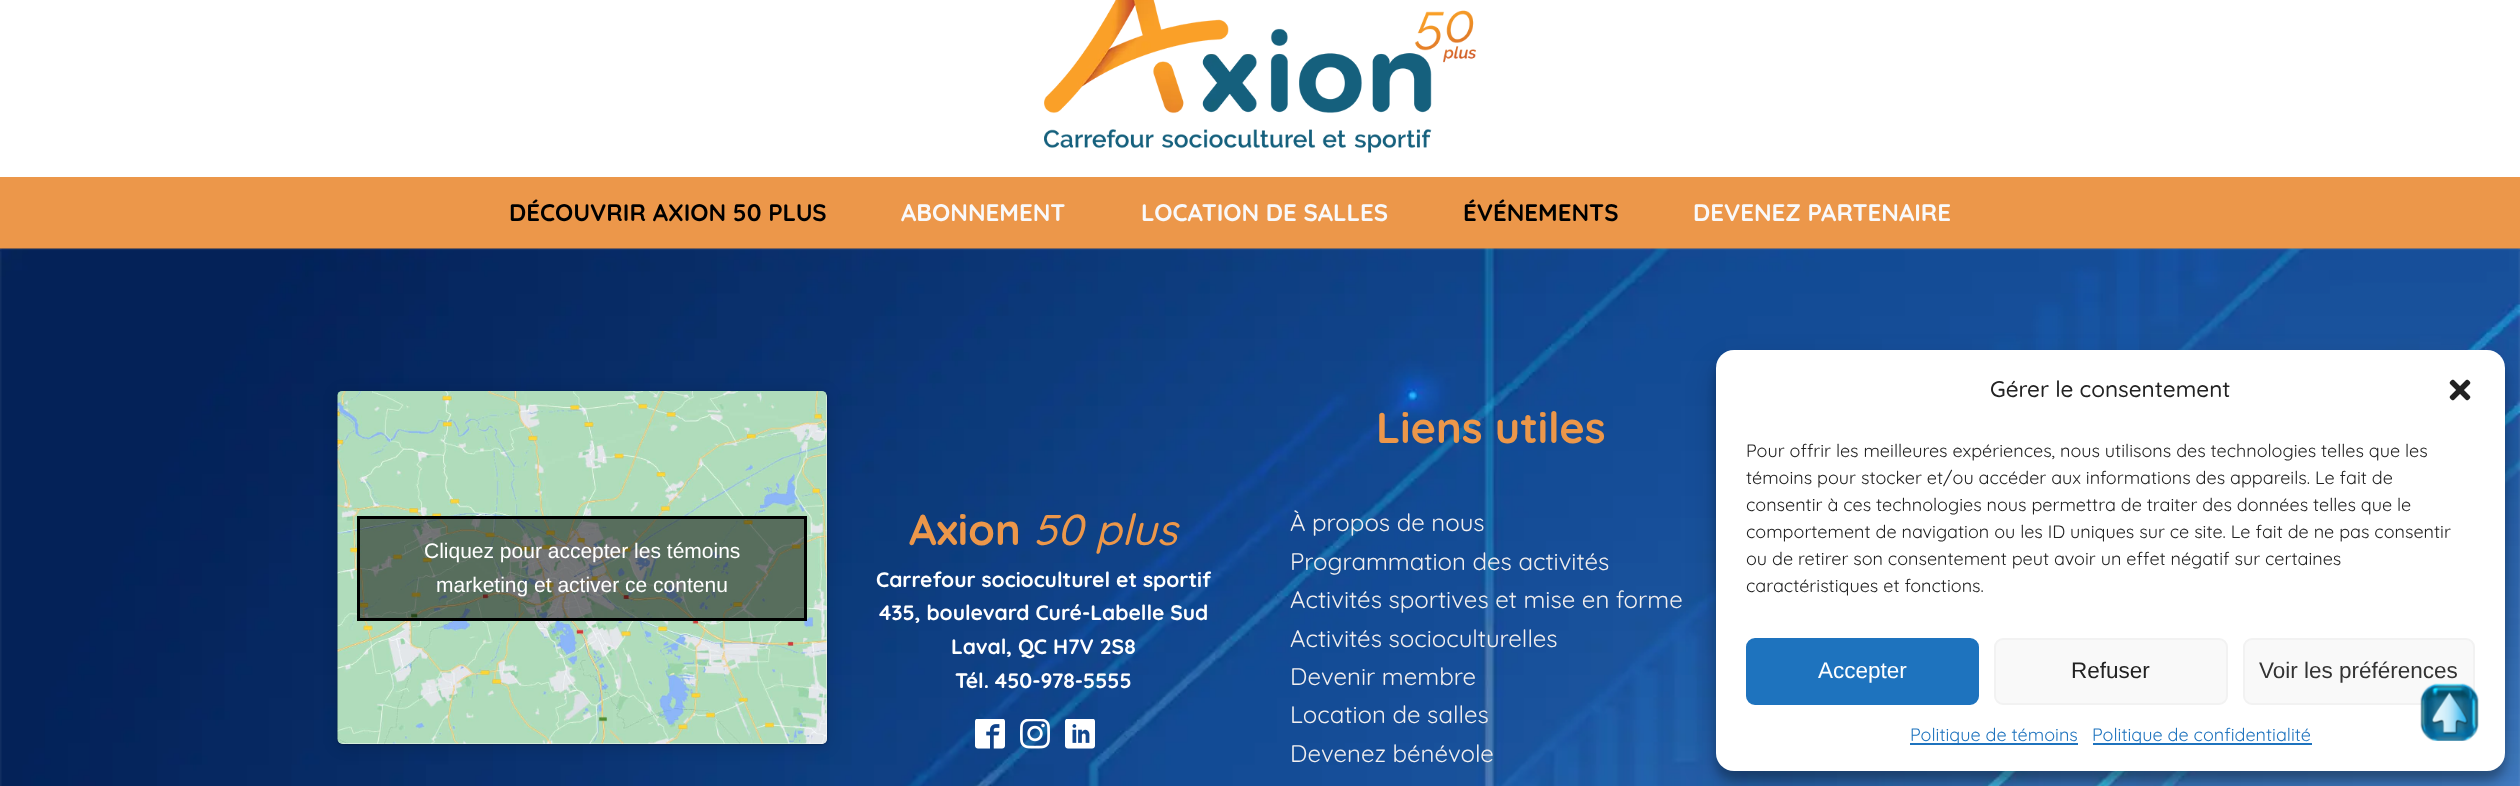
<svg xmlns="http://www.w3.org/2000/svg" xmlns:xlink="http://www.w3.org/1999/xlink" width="2520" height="786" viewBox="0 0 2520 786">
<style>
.cls-1{font:bold 24px Quicksand;fill:#000000}
.cls-2{font:bold 24px Quicksand;fill:#f9f9fa}
.cls-3{font:21px Liberation Sans;fill:#ffffff}
.cls-4{font:bold 43.25px Quicksand;fill:#ec974a}
.cls-5{font:italic 500 43.25px Quicksand;fill:#ec974a}
.cls-6{font:bold 21px Quicksand;fill:#ffffff}
.cls-7{font:24px Quicksand;fill:#f2efef}
.cls-8{font:500 22.5px Quicksand;fill:#222222}
.cls-9{font:18px Quicksand;fill:#222222}
.cls-10{font:22.5px Liberation Sans;fill:#ffffff}
.cls-11{font:22.5px Liberation Sans;fill:#222222}
.cls-12{font:22.5px Liberation Sans;fill:#333333}
.cls-13{font:18px Quicksand;fill:#1e73be}
</style>
<rect width="100%" height="100%" fill="#ffffff"/>
<image xlink:href="image0.png" x="1044" y="0" width="432" height="153"/>
<rect fill="#ec974a" x="0" y="177" width="2520" height="72"/>
<image xlink:href="image1.png" x="0" y="248" width="2520" height="538"/>
<rect fill="#000000" fill-opacity="0.15" filter="blur(7.5px)" x="338" y="393" width="489" height="353" rx="5"/>
<rect fill="#000000" fill-opacity="0.5" filter="blur(1px)" x="338" y="392" width="489" height="352" rx="5"/>
<rect fill="#ffffff" x="338" y="392" width="489" height="352" rx="5"/>
<image xlink:href="image2.png" x="337" y="391" width="490" height="353"/>
<rect fill="#000000" fill-opacity="0.5" stroke="#000000" stroke-width="3" x="358.5" y="517.5" width="447" height="102"/>
<image xlink:href="image3.png" x="975" y="719" width="30" height="30"/>
<image xlink:href="image4.png" x="1020" y="719" width="30" height="30"/>
<image xlink:href="image5.png" x="1065" y="719" width="30" height="30"/>
<rect fill="#000000" fill-opacity="0.23" filter="blur(4.5px)" x="1716" y="359" width="789" height="421" rx="18"/>
<rect fill="#000000" fill-opacity="0.19" filter="blur(15px)" x="1716" y="365" width="789" height="421" rx="18"/>
<rect fill="#ffffff" x="1716" y="350" width="789" height="421" rx="18"/>
<rect fill="#f9f9f9" stroke="#f2f2f2" stroke-width="2" x="2244" y="639" width="230" height="65" rx="8"/>
<image xlink:href="image6.png" x="2420" y="683" width="59" height="58"/>
<image xlink:href="image7.png" x="2449" y="379" width="22" height="22"/>
<rect fill="#1e73be" stroke="#1e73be" stroke-width="2" x="1747" y="639" width="231" height="65" rx="8"/>
<rect fill="#f9f9f9" stroke="#f2f2f2" stroke-width="2" x="1995" y="639" width="232" height="65" rx="8"/>
<rect fill="#1e73be" x="1910" y="743" width="168" height="2"/>
<rect fill="#1e73be" x="2093" y="743" width="219" height="2"/>
<text class="cls-1" x="509" y="221">DÉCOUVRIR AXION 50 PLUS</text>
<text class="cls-2" x="901" y="221">ABONNEMENT</text>
<text class="cls-2" x="1141" y="221">LOCATION DE SALLES</text>
<text class="cls-1" x="1463" y="221">ÉVÉNEMENTS</text>
<text class="cls-2" x="1693" y="221">DEVENEZ PARTENAIRE</text>
<text class="cls-3" x="424" y="558">Cliquez pour accepter les témoins</text>
<text class="cls-3" x="436" y="592">marketing et activer ce contenu</text>
<text class="cls-4" x="909" y="545">Axion</text>
<text class="cls-5" x="1033" y="545">50 plus</text>
<text class="cls-6" x="876" y="587">Carrefour socioculturel et sportif</text>
<text class="cls-6" x="879" y="620">435, boulevard Curé-Labelle Sud</text>
<text class="cls-6" x="951" y="654">Laval, QC H7V 2S8</text>
<text class="cls-6" x="955" y="688">Tél. 450-978-5555</text>
<text class="cls-4" x="1376" y="443">Liens utiles</text>
<text class="cls-7"><tspan x="1290" y="531">À propos de nous</tspan><tspan x="1290" y="570">Programmation des activités</tspan><tspan x="1290" y="608">Activités sportives et mise en forme</tspan><tspan x="1290" y="647">Activités socioculturelles</tspan><tspan x="1290" y="685">Devenir membre</tspan><tspan x="1290" y="723">Location de salles</tspan><tspan x="1290" y="762">Devenez bénévole</tspan></text>
<text class="cls-8" x="1990" y="397">Gérer le consentement</text>
<text class="cls-9"><tspan x="1746" y="457">Pour offrir les meilleures expériences, nous utilisons des technologies telles que les</tspan><tspan x="1746" y="484">témoins pour stocker et/ou accéder aux informations des appareils. Le fait de</tspan><tspan x="1746" y="511">consentir à ces technologies nous permettra de traiter des données telles que le</tspan><tspan x="1746" y="538">comportement de navigation ou les ID uniques sur ce site. Le fait de ne pas consentir</tspan><tspan x="1746" y="565">ou de retirer son consentement peut avoir un effet négatif sur certaines</tspan><tspan x="1746" y="592">caractéristiques et fonctions.</tspan></text>
<text class="cls-10" x="1818" y="678">Accepter</text>
<text class="cls-11" x="2071" y="678">Refuser</text>
<text class="cls-12" x="2259" y="678">Voir les préférences</text>
<text class="cls-13" x="1910" y="741">Politique de témoins</text>
<text class="cls-13" x="2092" y="741">Politique de confidentialité</text>
</svg>
